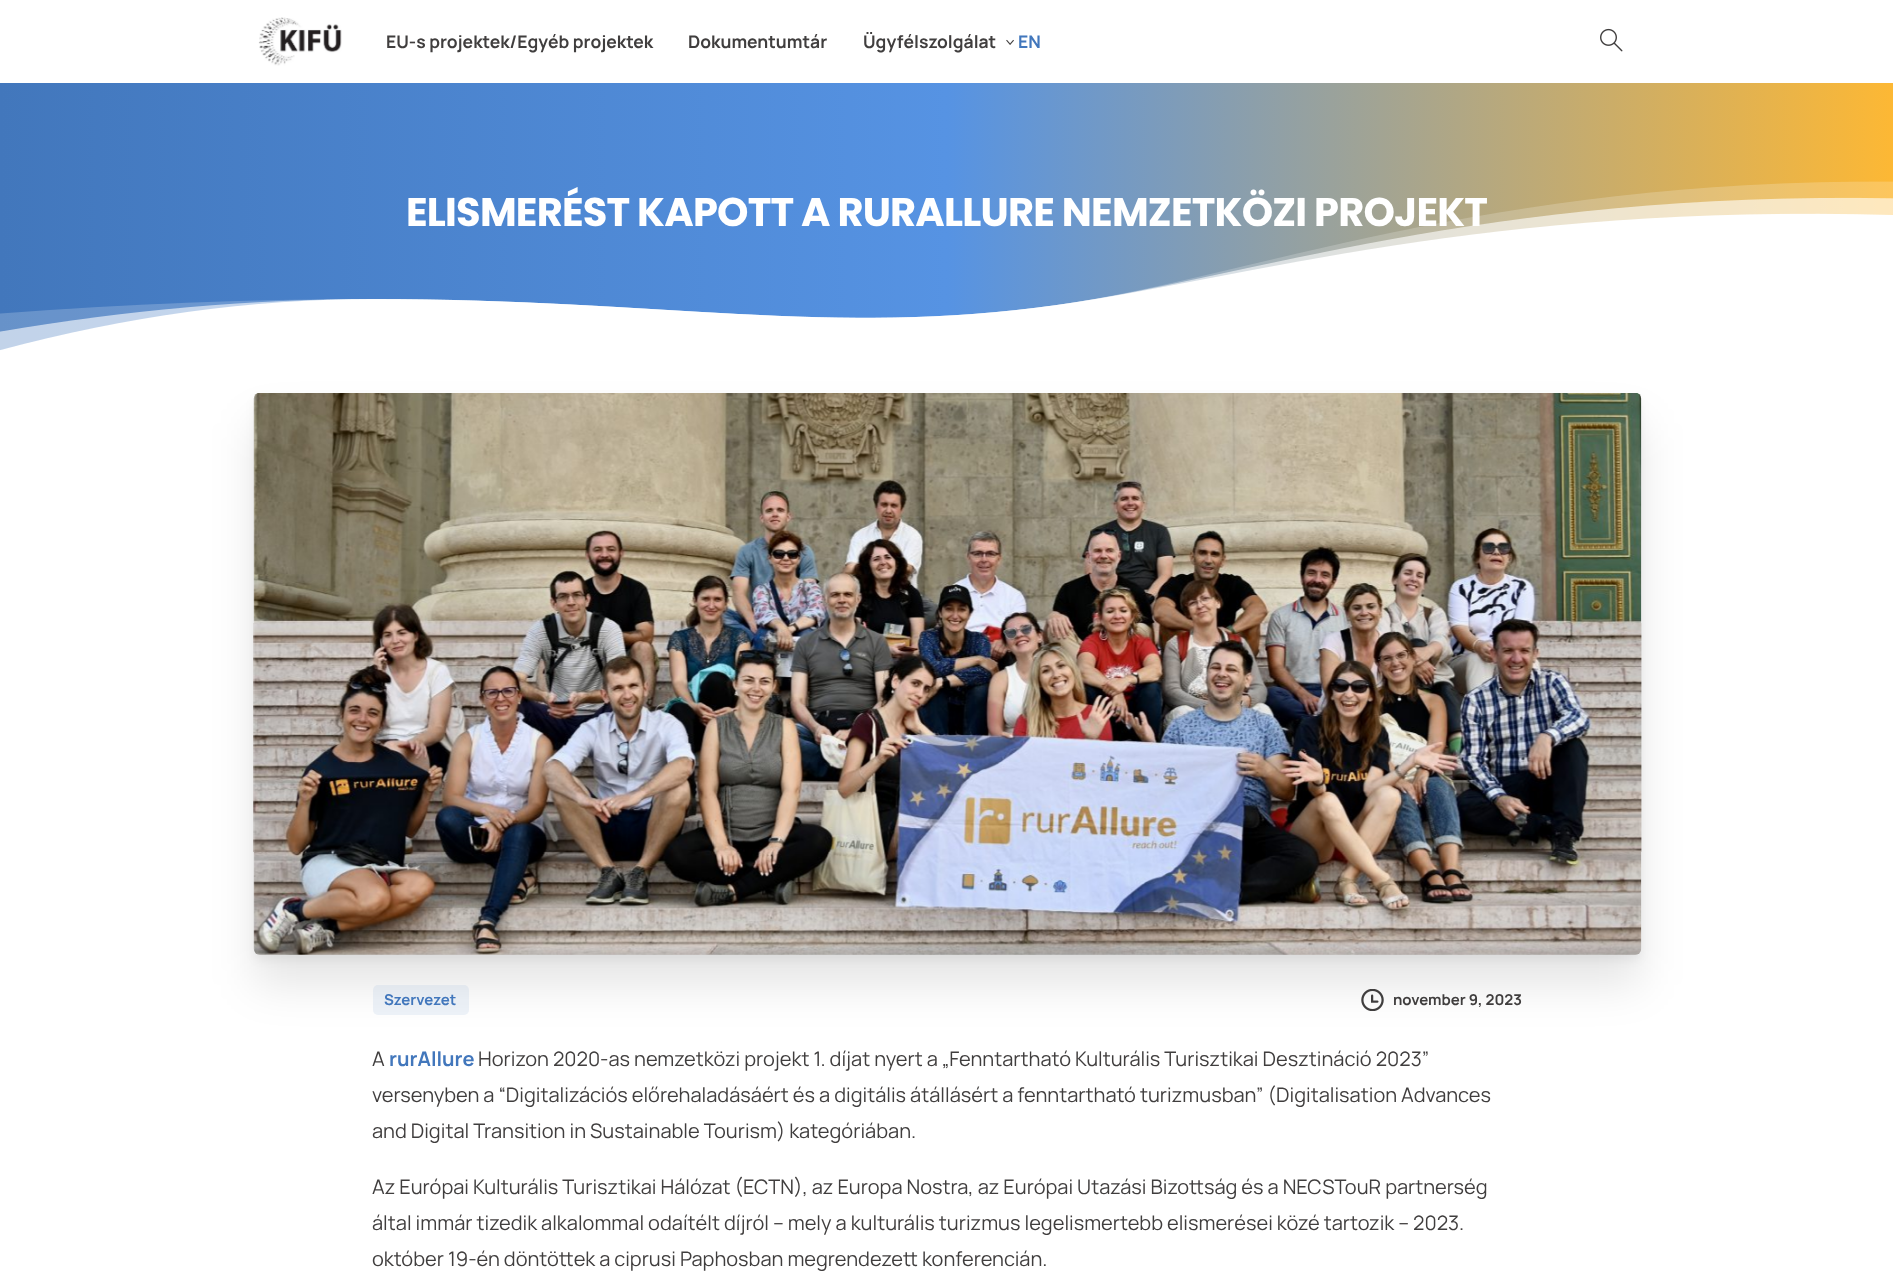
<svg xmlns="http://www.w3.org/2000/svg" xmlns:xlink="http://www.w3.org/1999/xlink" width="1893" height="1272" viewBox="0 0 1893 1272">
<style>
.cls-1{font:bold 17.5px Manrope;fill:#403e3e}
.cls-2{font:bold 17.5px Manrope;fill:#4277bc}
.cls-3{font:bold 40px Poppins;letter-spacing:-0.8px;fill:#ffffff}
.cls-4{font:bold 15px Manrope;fill:#4277bc}
.cls-5{font:bold 15px Manrope;fill:#403e3e}
.cls-6{font:20px Manrope;fill:#403e3e}
.cls-7{font:bold 20px Manrope;fill:#4277bc}
</style>
<defs>
<linearGradient id="g1" gradientUnits="userSpaceOnUse" x1="0" y1="636" x2="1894" y2="636"><stop offset="0" stop-color="#4277bc"/><stop offset="0.5" stop-color="#5693e3"/><stop offset="1" stop-color="#fdb834"/></linearGradient>
</defs>
<rect width="100%" height="100%" fill="#ffffff"/>
<image xlink:href="image0.png" x="258" y="17" width="84" height="49"/>
<image xlink:href="image1.png" x="1006" y="39" width="8" height="6"/>
<image xlink:href="image2.png" x="1600" y="28" width="23" height="24"/>
<rect fill="url(#g1)" x="0" y="83" width="1893" height="268"/>
<rect fill="#000000" fill-opacity="0.05" filter="blur(5px)" x="254" y="398" width="1387" height="562" rx="6"/>
<text class="cls-1" x="386" y="48">EU-s projektek/Egyéb projektek</text>
<text class="cls-1" x="688" y="48">Dokumentumtár</text>
<text class="cls-1" x="863" y="48">Ügyfélszolgálat</text>
<text class="cls-2" x="1018" y="48">EN</text>
<text class="cls-3" x="406" y="226">ELISMERÉST KAPOTT A RURALLURE NEMZETKÖZI PROJEKT</text>
<image xlink:href="image3.png" x="0" y="181" width="1893" height="187"/>
<rect fill="#000000" fill-opacity="0.1" filter="blur(22px)" x="254" y="423" width="1387" height="562" rx="6"/>
<image xlink:href="image4.png" x="253" y="393" width="1389" height="562"/>
<rect fill="#8dadd7" fill-opacity="0.15" x="373" y="985" width="96" height="30" rx="5"/>
<text class="cls-4" x="384" y="1005">Szervezet</text>
<image xlink:href="image5.png" x="1361" y="989" width="23" height="22"/>
<text class="cls-5" x="1393" y="1005">november 9, 2023</text>
<text class="cls-6" x="372" y="1066">A</text>
<text class="cls-7" x="389" y="1066">rurAllure</text>
<text class="cls-6" x="478" y="1066">Horizon 2020-as nemzetközi projekt 1. díjat nyert a „Fenntartható Kulturális Turisztikai Desztináció 2023”</text>
<text class="cls-6"><tspan x="372" y="1102">versenyben a “Digitalizációs előrehaladásáért és a digitális átállásért a fenntartható turizmusban” (Digitalisation Advances</tspan><tspan x="372" y="1138">and Digital Transition in Sustainable Tourism) kategóriában.</tspan></text>
<text class="cls-6"><tspan x="372" y="1194">Az Európai Kulturális Turisztikai Hálózat (ECTN), az Europa Nostra, az Európai Utazási Bizottság és a NECSTouR partnerség</tspan><tspan x="372" y="1230">által immár tizedik alkalommal odaítélt díjról – mely a kulturális turizmus legelismertebb elismerései közé tartozik – 2023.</tspan><tspan x="372" y="1266">október 19-én döntöttek a ciprusi Paphosban megrendezett konferencián.</tspan></text>
</svg>
